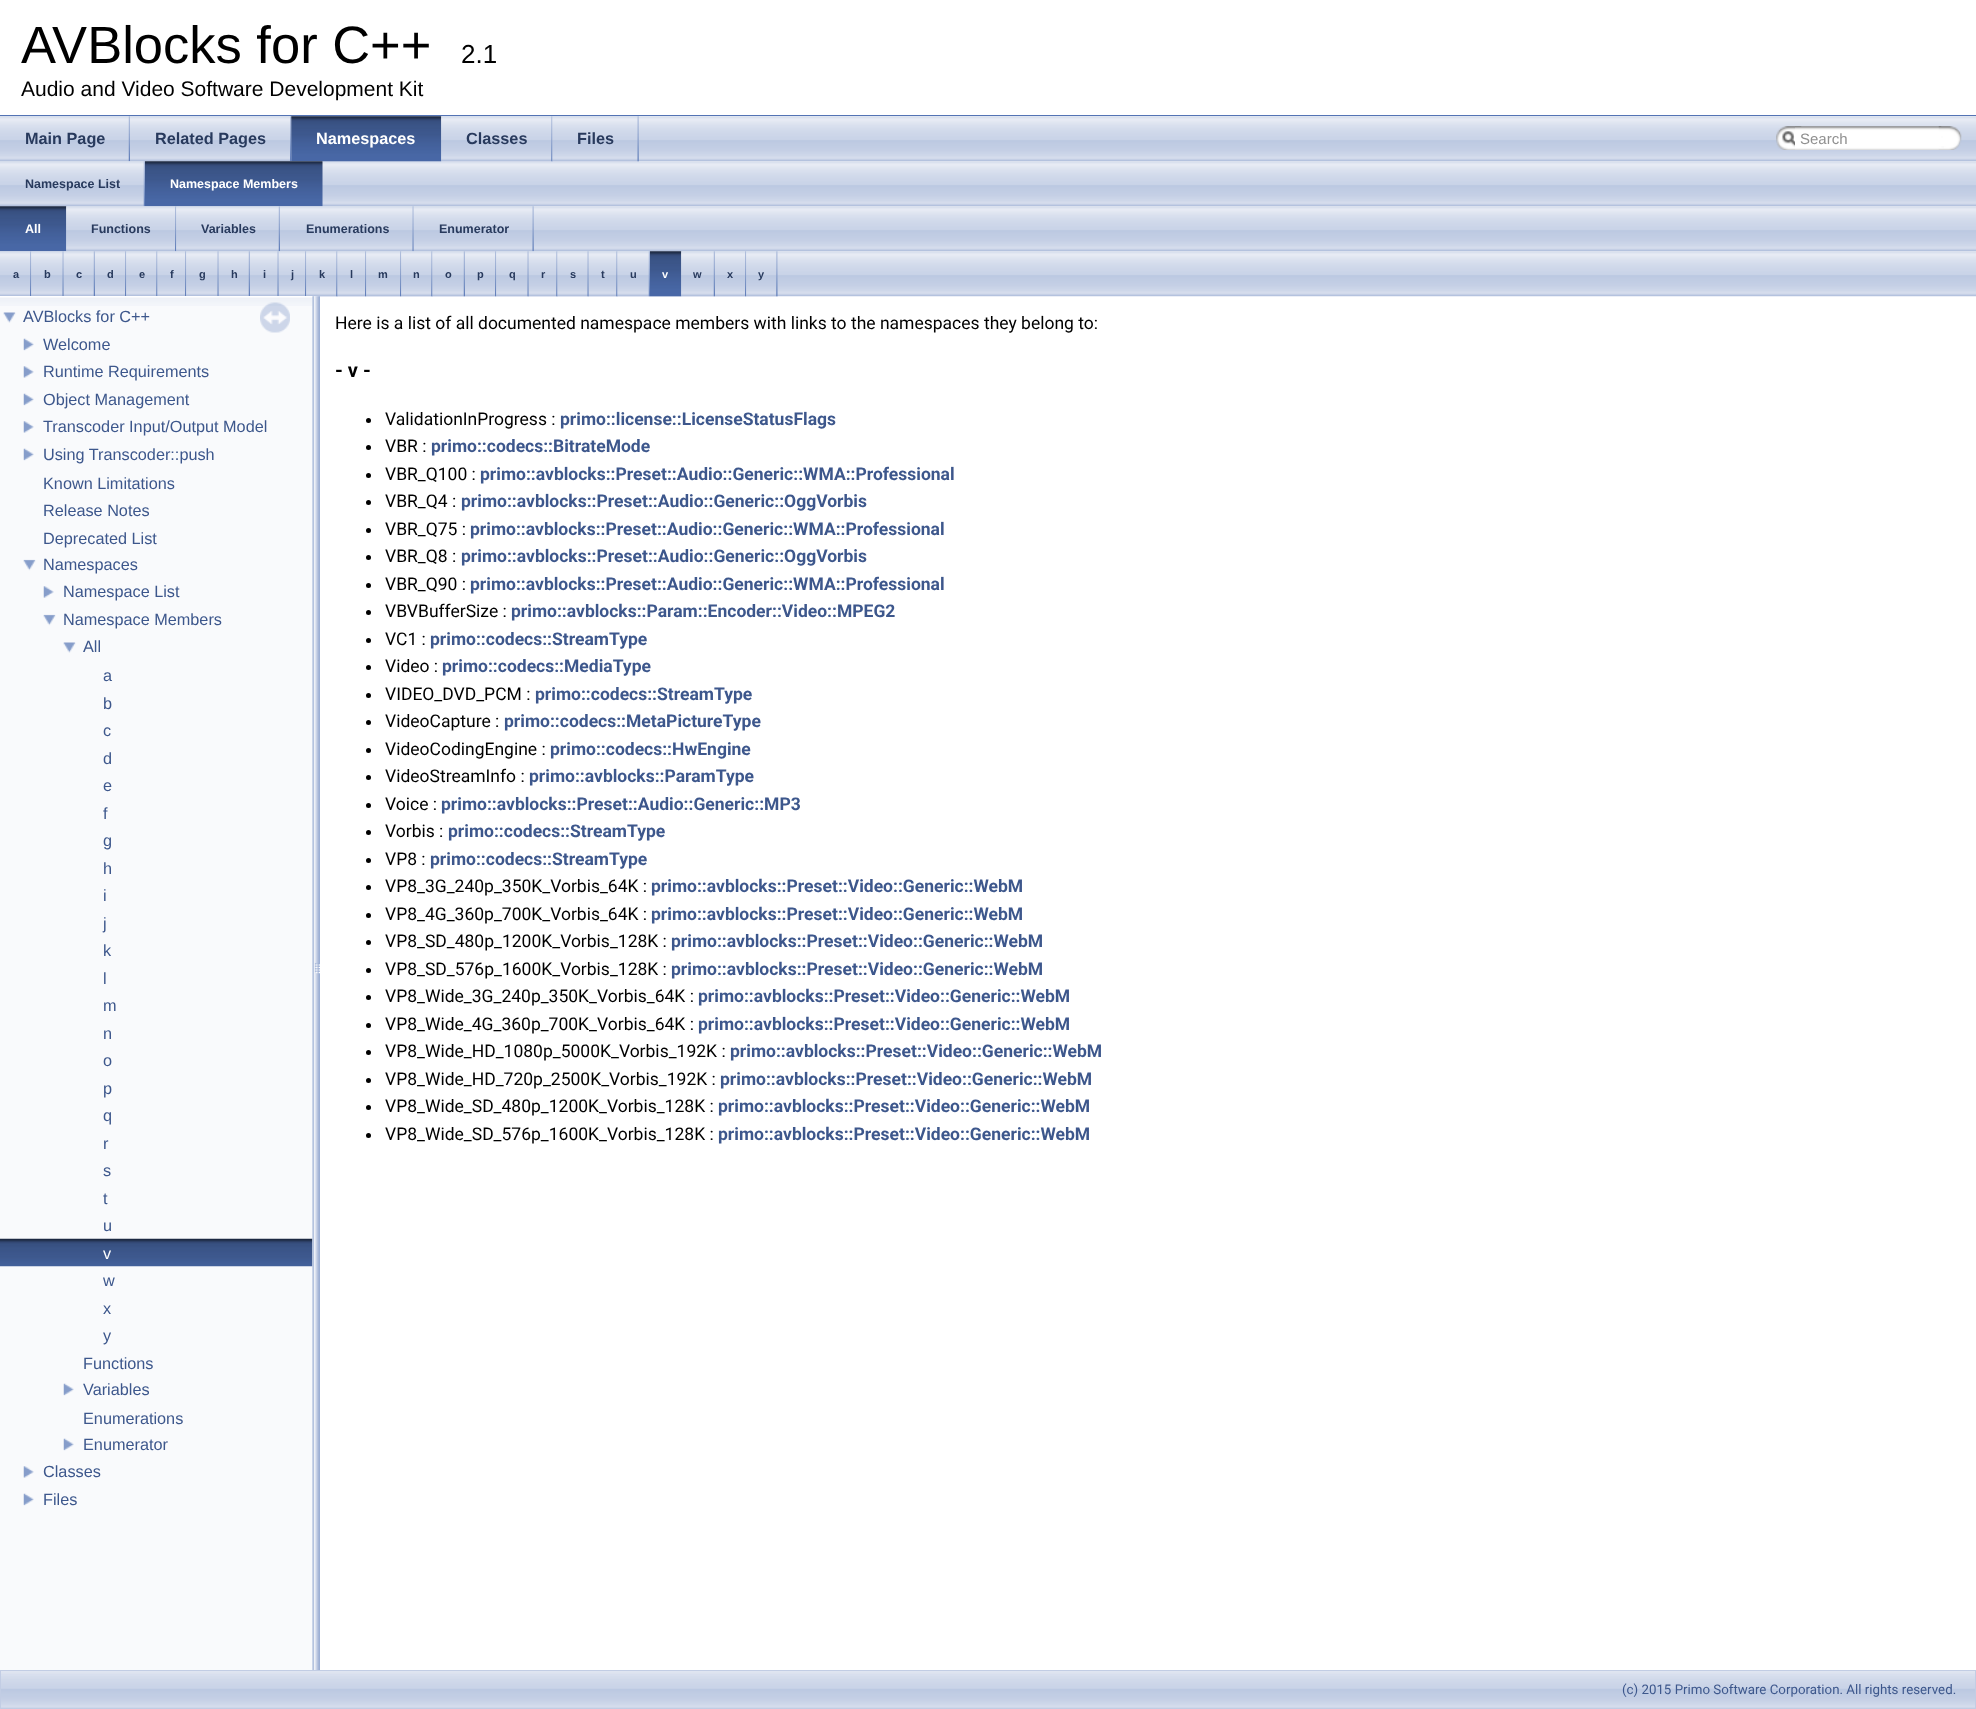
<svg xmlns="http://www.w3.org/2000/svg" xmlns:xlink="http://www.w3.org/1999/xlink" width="1976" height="1709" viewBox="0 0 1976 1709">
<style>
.cls-1{font:52.5px Liberation Sans;fill:#000000}
.cls-2{font:26px Liberation Sans;fill:#000000}
.cls-3{font:21px Liberation Sans;fill:#000000}
.cls-4{font:bold 16.25px Liberation Sans;fill:#283a5d}
.cls-5{font:bold 16.25px Liberation Sans;fill:#ffffff}
.cls-6{font:15px Liberation Sans;fill:#909090}
.cls-7{font:bold 12.5px Liberation Sans;fill:#283a5d}
.cls-8{font:bold 12.5px Liberation Sans;fill:#ffffff}
.cls-9{font:bold 11px Liberation Sans;fill:#283a5d}
.cls-10{font:bold 11px Liberation Sans;fill:#ffffff}
.cls-11{font:16.25px Liberation Sans;fill:#3d578c}
.cls-12{font:16.25px Liberation Sans;fill:#ffffff}
.cls-13{font:17.5px Roboto;fill:#000000}
.cls-14{font:bold 20px Roboto;fill:#000000}
.cls-15{font:bold 17.5px Roboto;fill:#3d578c}
.cls-16{font:13.3px Roboto;fill:#3d578c}
</style>
<rect width="100%" height="100%" fill="#ffffff"/>
<rect fill="#5373b4" x="0" y="115" width="1976" height="1"/>
<image xlink:href="image0.png" x="0" y="116" width="1976" height="46"/>
<image xlink:href="image15.png" x="0" y="161" width="1976" height="46"/>
<image xlink:href="image1.png" x="0" y="116" width="130" height="46"/>
<image xlink:href="image2.png" x="128" y="116" width="2" height="46"/>
<image xlink:href="image3.png" x="130" y="116" width="161" height="46"/>
<image xlink:href="image4.png" x="290" y="116" width="2" height="46"/>
<image xlink:href="image5.png" x="291" y="116" width="150" height="46"/>
<image xlink:href="image6.png" x="291" y="116" width="151" height="46"/>
<image xlink:href="image7.png" x="441" y="116" width="112" height="46"/>
<image xlink:href="image8.png" x="551" y="116" width="2" height="46"/>
<image xlink:href="image9.png" x="552" y="116" width="87" height="46"/>
<image xlink:href="image10.png" x="637" y="116" width="2" height="46"/>
<image xlink:href="image11.png" x="1776" y="126" width="26" height="24"/>
<image xlink:href="image12.png" x="1782" y="131" width="13" height="16"/>
<image xlink:href="image13.png" x="1795" y="126" width="147" height="24"/>
<image xlink:href="image14.png" x="1938" y="126" width="24" height="24"/>
<image xlink:href="image15.png" x="0" y="206" width="1976" height="46"/>
<image xlink:href="image16.png" x="0" y="161" width="145" height="46"/>
<image xlink:href="image17.png" x="143" y="161" width="2" height="46"/>
<image xlink:href="image18.png" x="145" y="161" width="178" height="46"/>
<image xlink:href="image19.png" x="145" y="161" width="178" height="46"/>
<image xlink:href="image15.png" x="0" y="251" width="1976" height="46"/>
<image xlink:href="image20.png" x="0" y="206" width="67" height="46"/>
<image xlink:href="image21.png" x="66" y="206" width="111" height="46"/>
<image xlink:href="image22.png" x="175" y="206" width="2" height="46"/>
<image xlink:href="image23.png" x="176" y="206" width="104" height="46"/>
<image xlink:href="image24.png" x="278" y="206" width="2" height="46"/>
<image xlink:href="image25.png" x="280" y="206" width="134" height="46"/>
<image xlink:href="image26.png" x="412" y="206" width="2" height="46"/>
<image xlink:href="image27.png" x="413" y="206" width="121" height="46"/>
<image xlink:href="image26.png" x="532" y="206" width="2" height="46"/>
<image xlink:href="image28.png" x="0" y="251" width="32" height="45"/>
<image xlink:href="image29.png" x="30" y="251" width="2" height="45"/>
<image xlink:href="image30.png" x="31" y="251" width="33" height="45"/>
<image xlink:href="image31.png" x="62" y="251" width="2" height="45"/>
<image xlink:href="image32.png" x="63" y="251" width="32" height="45"/>
<image xlink:href="image33.png" x="93" y="251" width="2" height="45"/>
<image xlink:href="image34.png" x="125" y="251" width="2" height="45"/>
<image xlink:href="image35.png" x="126" y="251" width="32" height="45"/>
<image xlink:href="image36.png" x="156" y="251" width="2" height="45"/>
<image xlink:href="image37.png" x="157" y="251" width="29" height="45"/>
<image xlink:href="image38.png" x="185" y="251" width="2" height="45"/>
<image xlink:href="image39.png" x="186" y="251" width="33" height="45"/>
<image xlink:href="image40.png" x="217" y="251" width="2" height="45"/>
<image xlink:href="image41.png" x="218" y="251" width="32" height="45"/>
<image xlink:href="image33.png" x="248" y="251" width="2" height="45"/>
<image xlink:href="image42.png" x="250" y="251" width="29" height="45"/>
<image xlink:href="image43.png" x="277" y="251" width="2" height="45"/>
<image xlink:href="image44.png" x="278" y="251" width="28" height="45"/>
<image xlink:href="image38.png" x="305" y="251" width="2" height="45"/>
<image xlink:href="image45.png" x="306" y="251" width="32" height="46"/>
<image xlink:href="image46.png" x="336" y="251" width="2" height="46"/>
<image xlink:href="image47.png" x="337" y="251" width="29" height="46"/>
<image xlink:href="image48.png" x="365" y="251" width="2" height="46"/>
<image xlink:href="image49.png" x="366" y="251" width="35" height="46"/>
<image xlink:href="image48.png" x="400" y="251" width="2" height="46"/>
<image xlink:href="image50.png" x="401" y="251" width="32" height="46"/>
<image xlink:href="image46.png" x="431" y="251" width="2" height="46"/>
<image xlink:href="image51.png" x="432" y="251" width="33" height="46"/>
<image xlink:href="image52.png" x="463" y="251" width="2" height="46"/>
<rect fill="#dee3f1" x="465" y="296" width="31" height="1"/>
<image xlink:href="image53.png" x="495" y="251" width="2" height="46"/>
<image xlink:href="image54.png" x="496" y="251" width="33" height="46"/>
<image xlink:href="image55.png" x="527" y="251" width="2" height="46"/>
<image xlink:href="image56.png" x="528" y="251" width="30" height="46"/>
<image xlink:href="image57.png" x="556" y="251" width="2" height="46"/>
<image xlink:href="image58.png" x="557" y="251" width="32" height="46"/>
<image xlink:href="image59.png" x="587" y="251" width="2" height="46"/>
<image xlink:href="image60.png" x="588" y="251" width="30" height="46"/>
<image xlink:href="image57.png" x="616" y="251" width="2" height="46"/>
<image xlink:href="image61.png" x="617" y="251" width="33" height="46"/>
<image xlink:href="image62.png" x="648" y="251" width="2" height="46"/>
<image xlink:href="image63.png" x="650" y="251" width="31" height="46"/>
<image xlink:href="image64.png" x="650" y="251" width="32" height="46"/>
<image xlink:href="image65.png" x="681" y="251" width="34" height="46"/>
<image xlink:href="image62.png" x="713" y="251" width="2" height="46"/>
<image xlink:href="image63.png" x="715" y="251" width="31" height="46"/>
<image xlink:href="image66.png" x="745" y="251" width="2" height="46"/>
<image xlink:href="image67.png" x="746" y="251" width="32" height="46"/>
<image xlink:href="image57.png" x="776" y="251" width="2" height="46"/>
<rect fill="#f9fafc" x="0" y="296" width="313" height="1374"/>
<image xlink:href="image68.png" x="0" y="296" width="313" height="10"/>
<image xlink:href="image69.png" x="3" y="312" width="13" height="11"/>
<image xlink:href="image70.png" x="23" y="338" width="11" height="13"/>
<image xlink:href="image71.png" x="23" y="366" width="11" height="12"/>
<image xlink:href="image70.png" x="23" y="393" width="11" height="13"/>
<image xlink:href="image71.png" x="23" y="421" width="11" height="12"/>
<image xlink:href="image70.png" x="23" y="448" width="11" height="13"/>
<image xlink:href="image72.png" x="23" y="559" width="13" height="12"/>
<image xlink:href="image73.png" x="43" y="586" width="11" height="12"/>
<image xlink:href="image74.png" x="43" y="614" width="13" height="12"/>
<image xlink:href="image69.png" x="63" y="642" width="13" height="11"/>
<image xlink:href="image75.png" x="0" y="1238" width="313" height="29"/>
<image xlink:href="image76.png" x="63" y="1383" width="11" height="13"/>
<image xlink:href="image76.png" x="63" y="1438" width="11" height="13"/>
<image xlink:href="image71.png" x="23" y="1466" width="11" height="12"/>
<image xlink:href="image70.png" x="23" y="1493" width="11" height="13"/>
<image xlink:href="image77.png" x="260" y="302" width="30" height="31"/>
<image xlink:href="image78.png" x="312" y="296" width="8" height="1374"/>
<circle fill="#000000" cx="368.5" cy="420.5" r="2.5"/>
<circle fill="#000000" cx="368.5" cy="447.5" r="2.5"/>
<circle fill="#000000" cx="368.5" cy="475.5" r="2.5"/>
<circle fill="#000000" cx="368.5" cy="502.5" r="2.5"/>
<circle fill="#000000" cx="368.5" cy="530.5" r="2.5"/>
<circle fill="#000000" cx="368.5" cy="557.5" r="2.5"/>
<circle fill="#000000" cx="368.5" cy="585.5" r="2.5"/>
<circle fill="#000000" cx="368.5" cy="612.5" r="2.5"/>
<circle fill="#000000" cx="368.5" cy="640.5" r="2.5"/>
<circle fill="#000000" cx="368.5" cy="667.5" r="2.5"/>
<circle fill="#000000" cx="368.5" cy="695.5" r="2.5"/>
<circle fill="#000000" cx="368.5" cy="722.5" r="2.5"/>
<circle fill="#000000" cx="368.5" cy="750.5" r="2.5"/>
<circle fill="#000000" cx="368.5" cy="777.5" r="2.5"/>
<circle fill="#000000" cx="368.5" cy="805.5" r="2.5"/>
<circle fill="#000000" cx="368.5" cy="832.5" r="2.5"/>
<circle fill="#000000" cx="368.5" cy="860.5" r="2.5"/>
<circle fill="#000000" cx="368.5" cy="887.5" r="2.5"/>
<circle fill="#000000" cx="368.5" cy="915.5" r="2.5"/>
<circle fill="#000000" cx="368.5" cy="942.5" r="2.5"/>
<circle fill="#000000" cx="368.5" cy="970.5" r="2.5"/>
<circle fill="#000000" cx="368.5" cy="997.5" r="2.5"/>
<circle fill="#000000" cx="368.5" cy="1025.5" r="2.5"/>
<circle fill="#000000" cx="368.5" cy="1052.5" r="2.5"/>
<circle fill="#000000" cx="368.5" cy="1080.5" r="2.5"/>
<circle fill="#000000" cx="368.5" cy="1107.5" r="2.5"/>
<circle fill="#000000" cx="368.5" cy="1135.5" r="2.5"/>
<image xlink:href="image79.png" x="1" y="1671" width="1974" height="38"/>
<rect fill="none" stroke="#c2cde4" x="0.5" y="1670.5" width="1975" height="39"/>
<text class="cls-1" x="21" y="63">AVBlocks for C++</text>
<text class="cls-2" x="461" y="63">2.1</text>
<text class="cls-3" x="21" y="96">Audio and Video Software Development Kit</text>
<text class="cls-4" x="25" y="144">Main Page</text>
<text class="cls-4" x="155" y="144">Related Pages</text>
<text class="cls-5" x="316" y="144">Namespaces</text>
<text class="cls-4" x="466" y="144">Classes</text>
<text class="cls-4" x="577" y="144">Files</text>
<text class="cls-6" x="1800" y="144">Search</text>
<text class="cls-7" x="25" y="188">Namespace List</text>
<text class="cls-8" x="170" y="188">Namespace Members</text>
<text class="cls-8" x="25" y="233">All</text>
<text class="cls-7" x="91" y="233">Functions</text>
<text class="cls-7" x="201" y="233">Variables</text>
<text class="cls-7" x="306" y="233">Enumerations</text>
<text class="cls-7" x="439" y="233">Enumerator</text>
<text class="cls-9" x="13" y="278">a</text>
<text class="cls-9" x="44" y="278">b</text>
<text class="cls-9" x="76" y="278">c</text>
<text class="cls-9" x="107" y="278">d</text>
<text class="cls-9" x="139" y="278">e</text>
<text class="cls-9" x="170" y="278">f</text>
<text class="cls-9" x="199" y="278">g</text>
<text class="cls-9" x="231" y="278">h</text>
<text class="cls-9" x="263" y="278">i</text>
<text class="cls-9" x="291" y="278">j</text>
<text class="cls-9" x="319" y="278">k</text>
<text class="cls-9" x="350" y="278">l</text>
<text class="cls-9" x="378" y="278">m</text>
<text class="cls-9" x="413" y="278">n</text>
<text class="cls-9" x="445" y="278">o</text>
<text class="cls-9" x="477" y="278">p</text>
<text class="cls-9" x="509" y="278">q</text>
<text class="cls-9" x="541" y="278">r</text>
<text class="cls-9" x="570" y="278">s</text>
<text class="cls-9" x="601" y="278">t</text>
<text class="cls-9" x="630" y="278">u</text>
<text class="cls-10" x="662" y="278">v</text>
<text class="cls-9" x="693" y="278">w</text>
<text class="cls-9" x="727" y="278">x</text>
<text class="cls-9" x="758" y="278">y</text>
<text class="cls-11" x="23" y="322">AVBlocks for C++</text>
<text class="cls-11"><tspan x="43" y="350">Welcome</tspan><tspan x="43" y="377">Runtime Requirements</tspan><tspan x="43" y="405">Object Management</tspan><tspan x="43" y="432">Transcoder Input/Output Model</tspan><tspan x="43" y="460">Using Transcoder::push</tspan><tspan x="43" y="489">Known Limitations</tspan><tspan x="43" y="516">Release Notes</tspan><tspan x="43" y="544">Deprecated List</tspan><tspan x="43" y="570">Namespaces</tspan></text>
<text class="cls-11"><tspan x="63" y="597">Namespace List</tspan><tspan x="63" y="625">Namespace Members</tspan></text>
<text class="cls-11" x="83" y="652">All</text>
<text class="cls-11"><tspan x="103" y="681">a</tspan><tspan x="103" y="709">b</tspan><tspan x="103" y="736">c</tspan><tspan x="103" y="764">d</tspan><tspan x="103" y="791">e</tspan><tspan x="103" y="819">f</tspan><tspan x="103" y="846">g</tspan><tspan x="103" y="874">h</tspan><tspan x="103" y="901">i</tspan><tspan x="103" y="929">j</tspan><tspan x="103" y="956">k</tspan><tspan x="103" y="984">l</tspan><tspan x="103" y="1011">m</tspan><tspan x="103" y="1039">n</tspan><tspan x="103" y="1066">o</tspan><tspan x="103" y="1094">p</tspan><tspan x="103" y="1121">q</tspan><tspan x="103" y="1149">r</tspan><tspan x="103" y="1176">s</tspan><tspan x="103" y="1204">t</tspan><tspan x="103" y="1231">u</tspan></text>
<text class="cls-12" x="103" y="1259">v</text>
<text class="cls-11"><tspan x="103" y="1286">w</tspan><tspan x="103" y="1314">x</tspan><tspan x="103" y="1341">y</tspan></text>
<text class="cls-11"><tspan x="83" y="1369">Functions</tspan><tspan x="83" y="1395">Variables</tspan><tspan x="83" y="1424">Enumerations</tspan><tspan x="83" y="1450">Enumerator</tspan></text>
<text class="cls-11"><tspan x="43" y="1477">Classes</tspan><tspan x="43" y="1505">Files</tspan></text>
<text class="cls-13" x="335" y="329">Here is a list of all documented namespace members with links to the namespaces they belong to:</text>
<text class="cls-14" x="335" y="377">- v -</text>
<text class="cls-13" x="385" y="425">ValidationInProgress :</text>
<text class="cls-15" x="560" y="425">primo::license::LicenseStatusFlags</text>
<text class="cls-13" x="385" y="452">VBR :</text>
<text class="cls-15" x="431" y="452">primo::codecs::BitrateMode</text>
<text class="cls-13" x="385" y="480">VBR_Q100 :</text>
<text class="cls-15" x="480" y="480">primo::avblocks::Preset::Audio::Generic::WMA::Professional</text>
<text class="cls-13" x="385" y="507">VBR_Q4 :</text>
<text class="cls-15" x="461" y="507">primo::avblocks::Preset::Audio::Generic::OggVorbis</text>
<text class="cls-13" x="385" y="535">VBR_Q75 :</text>
<text class="cls-15" x="470" y="535">primo::avblocks::Preset::Audio::Generic::WMA::Professional</text>
<text class="cls-13" x="385" y="562">VBR_Q8 :</text>
<text class="cls-15" x="461" y="562">primo::avblocks::Preset::Audio::Generic::OggVorbis</text>
<text class="cls-13" x="385" y="590">VBR_Q90 :</text>
<text class="cls-15" x="470" y="590">primo::avblocks::Preset::Audio::Generic::WMA::Professional</text>
<text class="cls-13" x="385" y="617">VBVBufferSize :</text>
<text class="cls-15" x="511" y="617">primo::avblocks::Param::Encoder::Video::MPEG2</text>
<text class="cls-13" x="385" y="645">VC1 :</text>
<text class="cls-15" x="430" y="645">primo::codecs::StreamType</text>
<text class="cls-13" x="385" y="672">Video :</text>
<text class="cls-15" x="442" y="672">primo::codecs::MediaType</text>
<text class="cls-13" x="385" y="700">VIDEO_DVD_PCM :</text>
<text class="cls-15" x="535" y="700">primo::codecs::StreamType</text>
<text class="cls-13" x="385" y="727">VideoCapture :</text>
<text class="cls-15" x="504" y="727">primo::codecs::MetaPictureType</text>
<text class="cls-13" x="385" y="755">VideoCodingEngine :</text>
<text class="cls-15" x="550" y="755">primo::codecs::HwEngine</text>
<text class="cls-13" x="385" y="782">VideoStreamInfo :</text>
<text class="cls-15" x="529" y="782">primo::avblocks::ParamType</text>
<text class="cls-13" x="385" y="810">Voice :</text>
<text class="cls-15" x="441" y="810">primo::avblocks::Preset::Audio::Generic::MP3</text>
<text class="cls-13" x="385" y="837">Vorbis :</text>
<text class="cls-15" x="448" y="837">primo::codecs::StreamType</text>
<text class="cls-13" x="385" y="865">VP8 :</text>
<text class="cls-15" x="430" y="865">primo::codecs::StreamType</text>
<text class="cls-13" x="385" y="892">VP8_3G_240p_350K_Vorbis_64K :</text>
<text class="cls-15" x="651" y="892">primo::avblocks::Preset::Video::Generic::WebM</text>
<text class="cls-13" x="385" y="920">VP8_4G_360p_700K_Vorbis_64K :</text>
<text class="cls-15" x="651" y="920">primo::avblocks::Preset::Video::Generic::WebM</text>
<text class="cls-13" x="385" y="947">VP8_SD_480p_1200K_Vorbis_128K :</text>
<text class="cls-15" x="671" y="947">primo::avblocks::Preset::Video::Generic::WebM</text>
<text class="cls-13" x="385" y="975">VP8_SD_576p_1600K_Vorbis_128K :</text>
<text class="cls-15" x="671" y="975">primo::avblocks::Preset::Video::Generic::WebM</text>
<text class="cls-13" x="385" y="1002">VP8_Wide_3G_240p_350K_Vorbis_64K :</text>
<text class="cls-15" x="698" y="1002">primo::avblocks::Preset::Video::Generic::WebM</text>
<text class="cls-13" x="385" y="1030">VP8_Wide_4G_360p_700K_Vorbis_64K :</text>
<text class="cls-15" x="698" y="1030">primo::avblocks::Preset::Video::Generic::WebM</text>
<text class="cls-13" x="385" y="1057">VP8_Wide_HD_1080p_5000K_Vorbis_192K :</text>
<text class="cls-15" x="730" y="1057">primo::avblocks::Preset::Video::Generic::WebM</text>
<text class="cls-13" x="385" y="1085">VP8_Wide_HD_720p_2500K_Vorbis_192K :</text>
<text class="cls-15" x="720" y="1085">primo::avblocks::Preset::Video::Generic::WebM</text>
<text class="cls-13" x="385" y="1112">VP8_Wide_SD_480p_1200K_Vorbis_128K :</text>
<text class="cls-15" x="718" y="1112">primo::avblocks::Preset::Video::Generic::WebM</text>
<text class="cls-13" x="385" y="1140">VP8_Wide_SD_576p_1600K_Vorbis_128K :</text>
<text class="cls-15" x="718" y="1140">primo::avblocks::Preset::Video::Generic::WebM</text>
<text class="cls-16" x="1622" y="1694">(c) 2015 Primo Software Corporation. All rights reserved.</text>
</svg>
